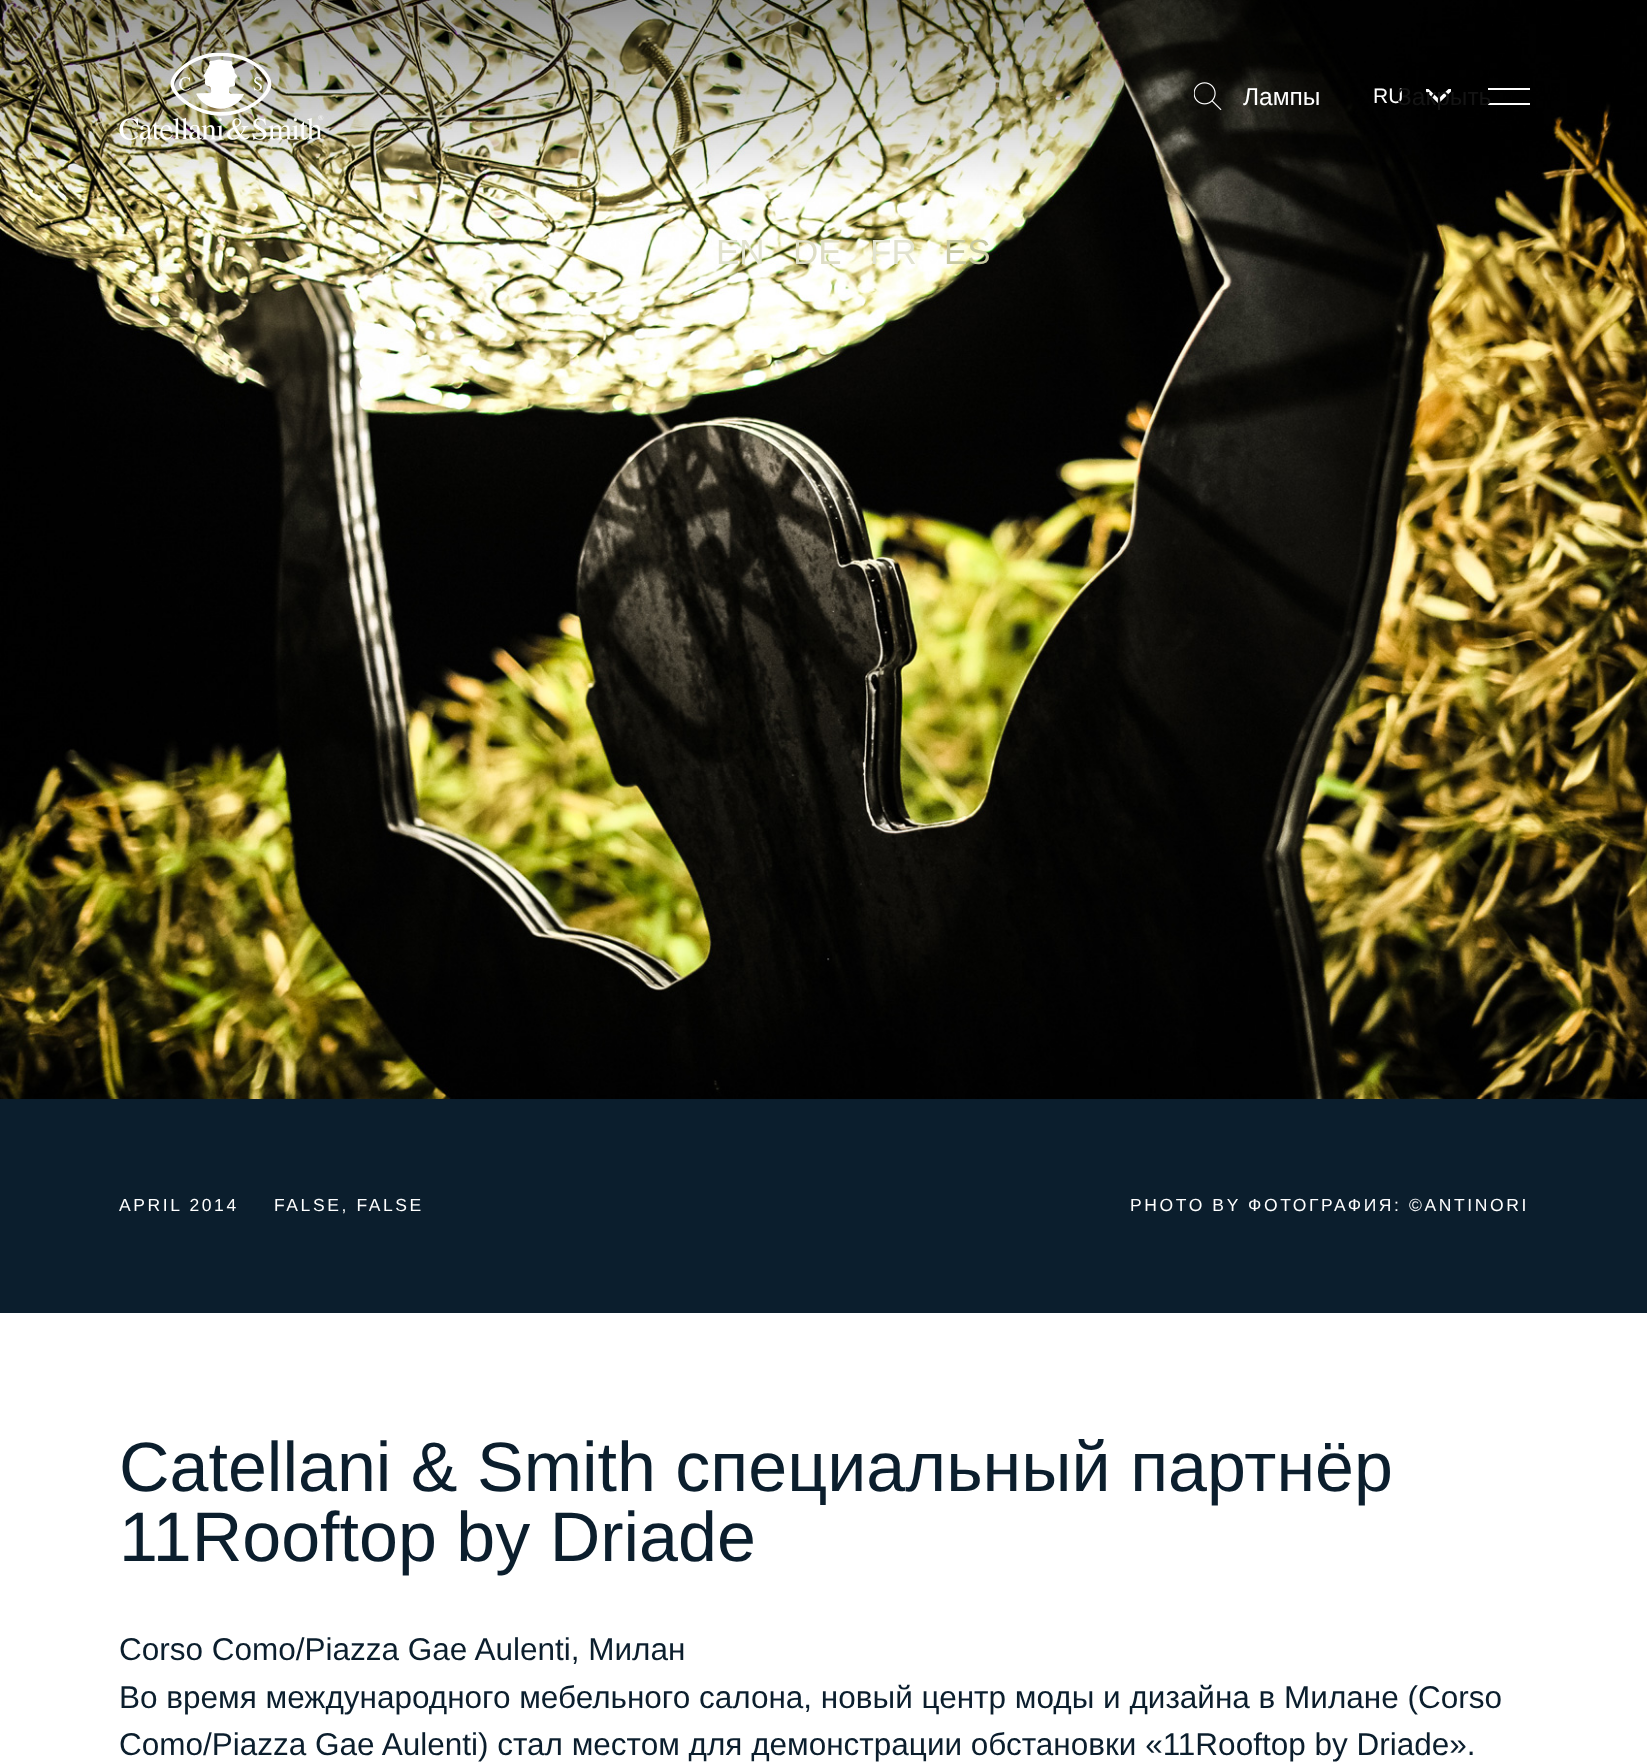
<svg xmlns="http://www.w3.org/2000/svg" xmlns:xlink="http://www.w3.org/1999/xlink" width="1647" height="1762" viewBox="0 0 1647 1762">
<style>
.cls-1{font:21px Liberation Sans;fill:#ffffff}
.cls-2{font:35px Liberation Sans;fill:#e1e2ce}
.cls-3{font:35px Liberation Sans;fill:#deddc5}
.cls-4{font:35px Liberation Sans;fill:#c7c8a1}
.cls-5{font:24.5px Liberation Sans;fill:#141414}
.cls-6{font:24.5px Liberation Sans;fill:#ffffff}
.cls-7{font:17.5px Liberation Sans;letter-spacing:2.6px;fill:#ffffff}
.cls-8{font:70px Liberation Sans;fill:#0b1e2d}
.cls-9{font:31.5px Liberation Sans;fill:#0b1e2d}
</style>
<rect width="100%" height="100%" fill="#ffffff"/>
<image xlink:href="image0.png" x="0" y="0" width="1647" height="1099"/>
<image xlink:href="image1.png" x="119" y="53" width="205" height="87"/>
<path fill="#ffffff" d="M1448.5 89L1438.5 98.5L1428.5 89H1426V91.5L1438.5 103.5L1451 91.5V89Z"/>
<rect fill="#ffffff" x="1488" y="88" width="42" height="2"/>
<rect fill="#ffffff" x="1488" y="103" width="42" height="2"/>
<image xlink:href="image2.png" x="1194" y="82" width="28" height="28"/>
<rect fill="#0b1e2d" x="0" y="1099" width="1647" height="214"/>
<text class="cls-1" x="1373" y="103">RU</text>
<text class="cls-2" x="716" y="264">EN</text>
<text class="cls-3" x="793" y="264">DE</text>
<text class="cls-2" x="870" y="264">FR</text>
<text class="cls-4" x="944" y="264">ES</text>
<text class="cls-5" x="1397" y="105">Закрыть</text>
<text class="cls-6" x="1243" y="105">Лампы</text>
<text class="cls-7" x="119" y="1211">APRIL 2014</text>
<text class="cls-7" x="274" y="1211">FALSE, FALSE</text>
<text class="cls-7" x="1130" y="1211">PHOTO BY ФОТОГРАФИЯ: ©ANTINORI</text>
<text class="cls-8"><tspan x="119" y="1491">Catellani &amp; Smith специальный партнёр</tspan><tspan x="119" y="1561">11Rooftop by Driade</tspan></text>
<text class="cls-9"><tspan x="119" y="1660">Corso Como/Piazza Gae Aulenti, Милан</tspan><tspan x="119" y="1708">Во время международного мебельного салона, новый центр моды и дизайна в Милане (Corso</tspan><tspan x="119" y="1755">Como/Piazza Gae Aulenti) стал местом для демонстрации обстановки «11Rooftop by Driade».</tspan></text>
</svg>
